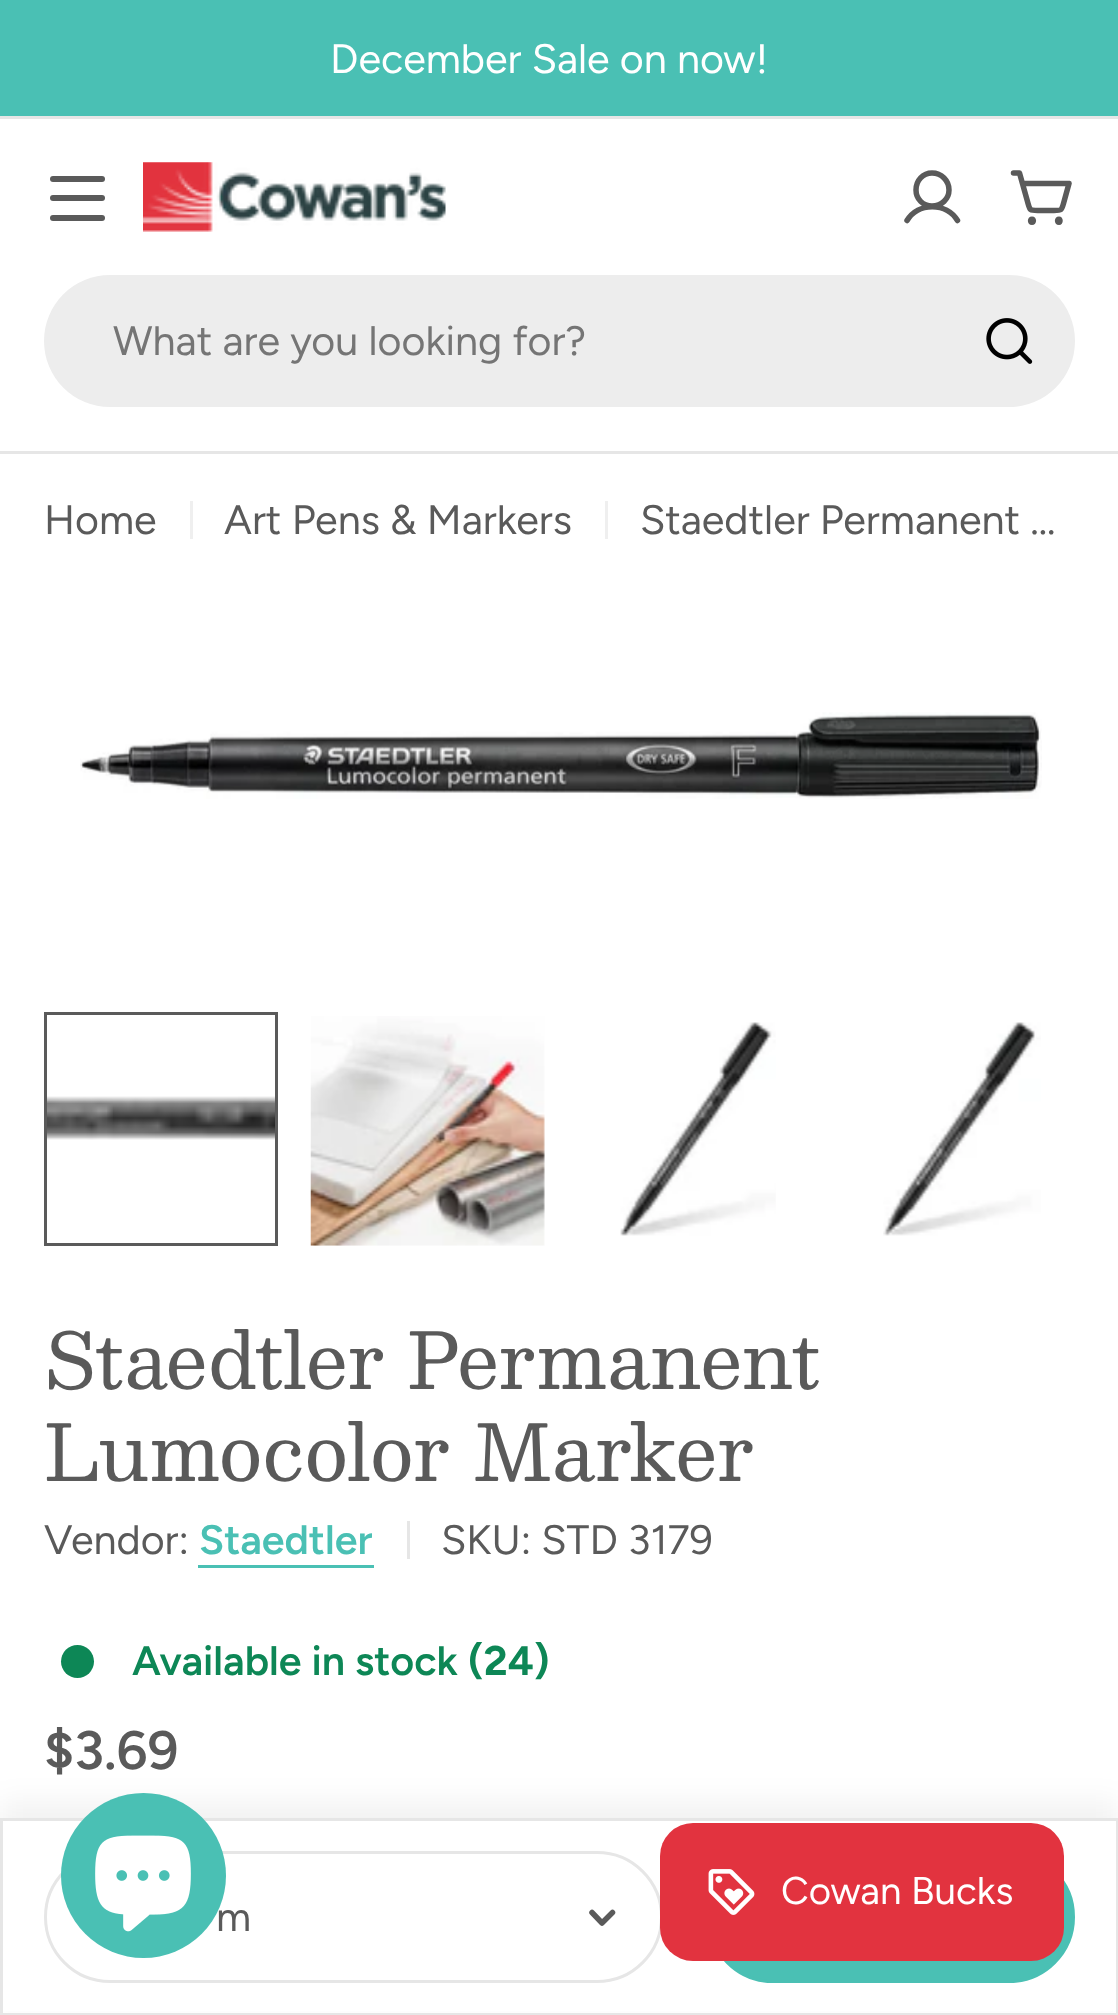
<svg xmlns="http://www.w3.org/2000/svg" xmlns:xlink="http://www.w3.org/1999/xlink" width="1118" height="2015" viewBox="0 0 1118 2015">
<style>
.cls-1{font:41.25px Figtree;fill:#ffffff}
.cls-2{font:41.25px Figtree;fill:#757575}
.cls-3{font:41.25px Figtree;fill:#5a5a5a}
.cls-4{font:77px Besley;fill:#5a5a5a}
.cls-5{font:600 41.25px Figtree;fill:#4ac0b4}
.cls-6{font:600 41.25px Figtree;fill:#0d8756}
.cls-7{font:bold 41.25px Figtree;fill:#0d8756}
.cls-8{font:600 54px Figtree;fill:#5a5a5a}
.cls-9{font:38.5px Figtree;fill:#ffffff}
</style>
<rect width="100%" height="100%" fill="#ffffff"/>
<rect fill="#4ac0b4" x="0" y="0" width="1118" height="116"/>
<rect fill="#e6e6e6" x="0" y="116" width="1118" height="3"/>
<rect fill="#5a5a5a" x="50" y="195" width="55" height="6" rx="3"/>
<rect fill="#5a5a5a" x="50" y="176" width="55" height="6" rx="3"/>
<rect fill="#5a5a5a" x="50" y="215" width="55" height="6" rx="3"/>
<image xlink:href="image0.png" x="143" y="162" width="303" height="70"/>
<path fill="none" stroke="#5a5a5a" stroke-width="5.5" stroke-linecap="round" stroke-linejoin="round" d="M932 206C941.5 206 949 199 949 190C949 180.5 941.5 173 932 173C923 173 916 180.5 916 190C916 199 923 206 932 206ZM907 220.5C918 202 946.5 202 957.5 220.5"/>
<path fill="#5a5a5a" d="M1032 225C1037.5 225 1037.5 216.5 1032 216.5C1026.5 216.5 1026.5 225 1032 225ZM1059 225C1064 225 1064 216.5 1059 216.5C1053.5 216.5 1053.5 225 1059 225Z"/>
<path fill="none" stroke="#5a5a5a" stroke-width="5.5" stroke-linecap="round" stroke-linejoin="round" d="M1013.5 173H1019.5L1027.5 201.5C1030 210 1029 210.5 1037.5 210.5H1054C1061.5 210.5 1061.5 210.5 1063.5 203.5L1069 183.5H1022.5"/>
<rect fill="#ededed" x="44" y="275" width="1031" height="132" rx="66"/>
<image xlink:href="image1.png" x="986" y="318" width="47" height="46"/>
<rect fill="#e6e6e6" x="0" y="451" width="1118" height="3"/>
<rect fill="#efefef" x="190" y="501" width="3" height="38"/>
<rect fill="#efefef" x="605" y="501" width="3" height="38"/>
<image xlink:href="image2.png" x="80" y="712" width="962" height="87"/>
<image xlink:href="image3.png" x="47" y="1096" width="228" height="44"/>
<rect fill="none" stroke="#5a5a5a" stroke-width="3" x="45.5" y="1013.5" width="231" height="231"/>
<image xlink:href="image4.png" x="310" y="1016" width="235" height="230"/>
<image xlink:href="image5.png" x="620" y="1022" width="156" height="214"/>
<image xlink:href="image6.png" x="883" y="1022" width="158" height="214"/>
<rect fill="#4ac0b4" x="198" y="1565" width="176" height="3"/>
<rect fill="#e6e6e6" x="407" y="1521" width="3" height="38"/>
<circle fill="#0d8756" cx="77.5" cy="1661.5" r="16.5"/>
<rect fill="#000000" fill-opacity="0.05" filter="blur(14px)" x="0" y="1801" width="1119" height="198"/>
<rect fill="#ffffff" x="3" y="1821" width="1113" height="190"/>
<rect fill="none" stroke="#e6e6e6" stroke-width="3" x="1.5" y="1819.5" width="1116" height="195"/>
<rect fill="none" stroke="#e6e6e6" stroke-width="3" x="45.5" y="1852.5" width="616" height="129" rx="64.5"/>
<path fill="none" stroke="#5a5a5a" stroke-width="5.5" stroke-linecap="round" stroke-linejoin="round" d="M612.5 1912.5L602 1923L592 1912.5"/>
<rect fill="#4ac0b4" stroke="#4ac0b4" stroke-width="3" x="708.5" y="1852.5" width="365" height="129" rx="64.5"/>
<rect fill="#e2333f" x="660" y="1823" width="404" height="138" rx="33"/>
<image xlink:href="image8.png" x="708" y="1869" width="47" height="46"/>
<text class="cls-1" x="330" y="73">December Sale on now!</text>
<text class="cls-2" x="113" y="355">What are you looking for?</text>
<text class="cls-3" x="44" y="534">Home</text>
<text class="cls-3" x="224" y="534">Art Pens &amp; Markers</text>
<text class="cls-3" x="640" y="534">Staedtler Permanent …</text>
<text class="cls-4"><tspan x="44" y="1389">Staedtler Permanent</tspan><tspan x="44" y="1481">Lumocolor Marker</tspan></text>
<text class="cls-3" x="44" y="1554">Vendor:</text>
<text class="cls-5" x="199" y="1554">Staedtler</text>
<text class="cls-3" x="441" y="1554">SKU: STD 3179</text>
<text class="cls-6" x="132" y="1675">Available in stock</text>
<text class="cls-7" x="468" y="1675">(24)</text>
<text class="cls-8" x="44" y="1769">$3.69</text>
<text class="cls-3" x="216" y="1931">m</text>
<circle fill="#4ac0b4" cx="143.5" cy="1875.5" r="82.5"/>
<image xlink:href="image7.png" x="95" y="1835" width="96" height="97"/>
<text class="cls-9" x="781" y="1904">Cowan Bucks</text>
</svg>
